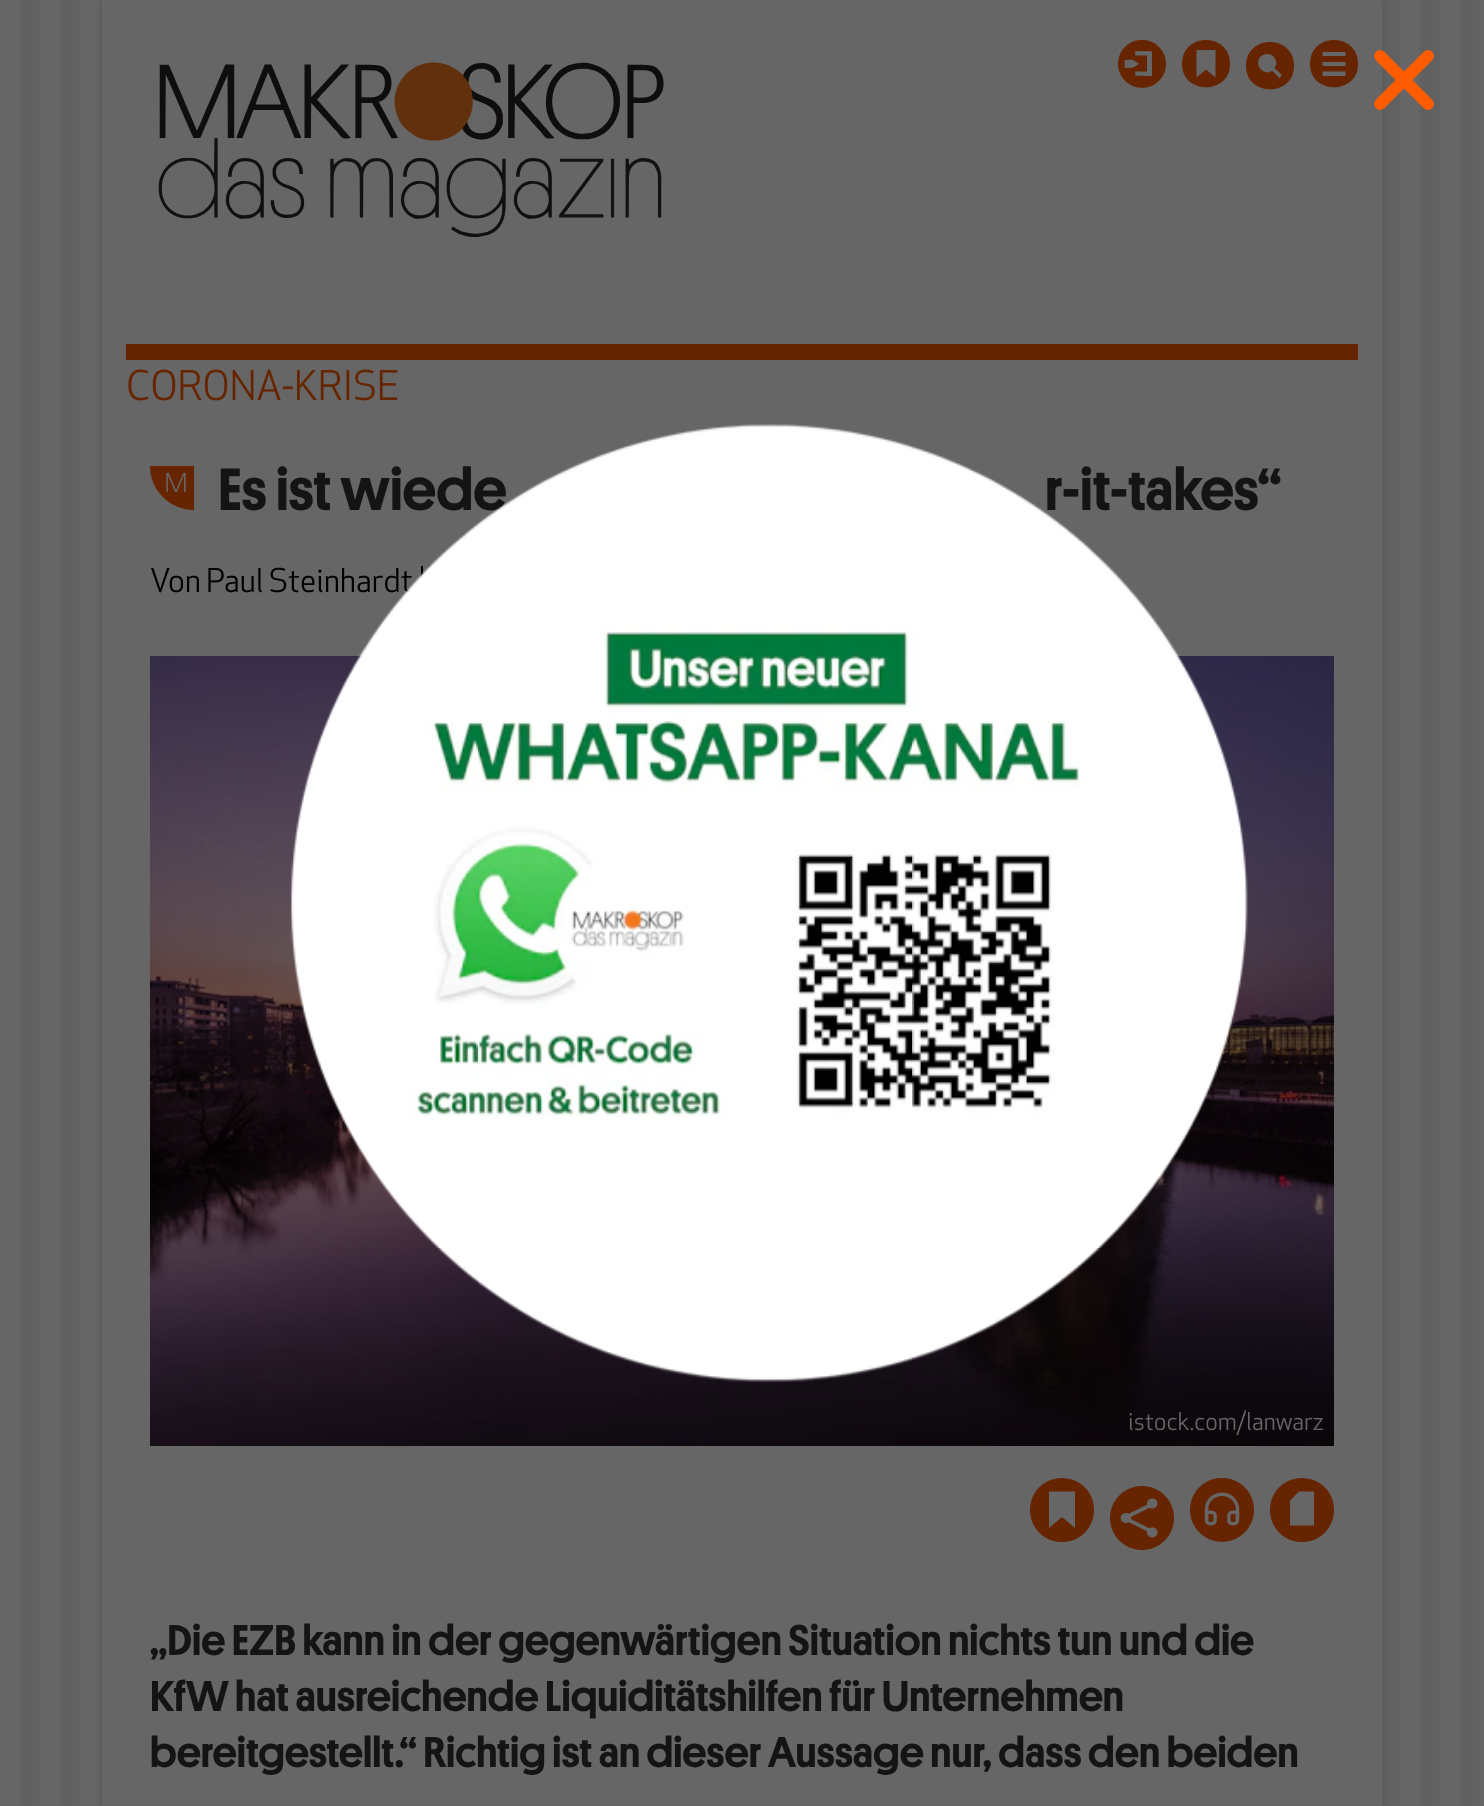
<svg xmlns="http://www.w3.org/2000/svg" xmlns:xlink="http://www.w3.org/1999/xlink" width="1484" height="1806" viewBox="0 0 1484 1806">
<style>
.cls-1{font:500 60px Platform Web;fill:#141414}
.cls-2{font:500 43.2px Platform Web;fill:#141414}
</style>
<rect width="100%" height="100%" fill="#666666"/>
<image xlink:href="image0.png" x="20" y="0" width="1460" height="1806"/>
<rect fill="#000000" fill-opacity="0.1" filter="blur(3px)" x="102" y="2" width="1280" height="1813"/>
<rect fill="#666666" x="102" y="0" width="24" height="1806"/>
<rect fill="#666666" x="126" y="0" width="1232" height="344"/>
<image xlink:href="image1.png" x="158" y="62" width="506" height="175"/>
<image xlink:href="image2.png" x="1118" y="40" width="48" height="48"/>
<path fill="#662400" d="M1230 64C1230 95 1182 95 1182 64C1182 32 1230 32 1230 64"/>
<path fill="#666666" d="M1215.5 50H1196.5V77.5L1206 69.5L1215.5 77.5Z"/>
<path fill="#662400" d="M1294 66C1294 97 1246 97 1246 66C1246 34 1294 34 1294 66"/>
<path fill="#666666" d="M1274.5 68C1278 63.5 1276 57 1270.5 54.5C1268 53.5 1265.5 54 1263 55C1251.5 61 1262.5 78 1272.5 70.5H1272L1279.5 78L1282 75Z"/>
<path fill="#662400" d="M1358 64C1358 95 1310 95 1310 64C1310 32 1358 32 1358 64"/>
<path fill="#666666" fill-rule="evenodd" d="M1322.5 52H1345.5V56H1322.5ZM1322.5 62H1345.5V66H1322.5ZM1322.5 71.5H1345.5V76H1322.5Z"/>
<rect fill="#666666" x="1358" y="0" width="24" height="1806"/>
<path fill="none" stroke="#ff5b00" stroke-width="12" stroke-linecap="round" stroke-linejoin="round" d="M1428 56L1380 104M1380 56L1428 104"/>
<rect fill="#666666" x="126" y="360" width="1232" height="1446"/>
<rect fill="#662400" x="126" y="344" width="1232" height="16"/>
<image xlink:href="image4.png" x="128" y="369" width="270" height="32"/>
<image xlink:href="image5.png" x="150" y="466" width="44" height="44"/>
<image xlink:href="image6.png" x="151" y="568" width="48" height="25"/>
<image xlink:href="image7.png" x="208" y="567" width="204" height="26"/>
<rect fill="#000000" x="421" y="566" width="2" height="13"/>
<image xlink:href="image8.png" x="150" y="656" width="1184" height="790"/>
<image xlink:href="image9.png" x="1129" y="1410" width="194" height="25"/>
<path fill="#662400" d="M1094 1510C1094 1528 1080 1542 1062 1542C1044 1542 1030 1528 1030 1510C1030 1492 1044 1478 1062 1478C1080 1478 1094 1492 1094 1510"/>
<path fill="#666666" d="M1075 1491.5H1049V1528L1062 1517L1075 1528Z"/>
<image xlink:href="image10.png" x="1110" y="1486" width="64" height="64"/>
<image xlink:href="image11.png" x="1190" y="1478" width="64" height="64"/>
<path fill="#662400" d="M1334 1510C1334 1528 1320 1542 1302 1542C1284 1542 1270 1528 1270 1510C1270 1492 1284 1478 1302 1478C1320 1478 1334 1492 1334 1510"/>
<path fill="#666666" d="M1314 1525.5V1491.5H1299L1290 1500.5V1525.5Z"/>
<text class="cls-1" x="218" y="510">Es ist wiede</text>
<text class="cls-1" x="1045" y="510">r-it-takes“</text>
<image xlink:href="image3.png" x="290" y="424" width="958" height="959"/>
<text class="cls-2"><tspan x="150" y="1655">„Die EZB kann in der gegenwärtigen Situation nichts tun und die</tspan><tspan x="150" y="1711">KfW hat ausreichende Liquiditätshilfen für Unternehmen</tspan><tspan x="150" y="1767">bereitgestellt.“ Richtig ist an dieser Aussage nur, dass den beiden</tspan></text>
</svg>
